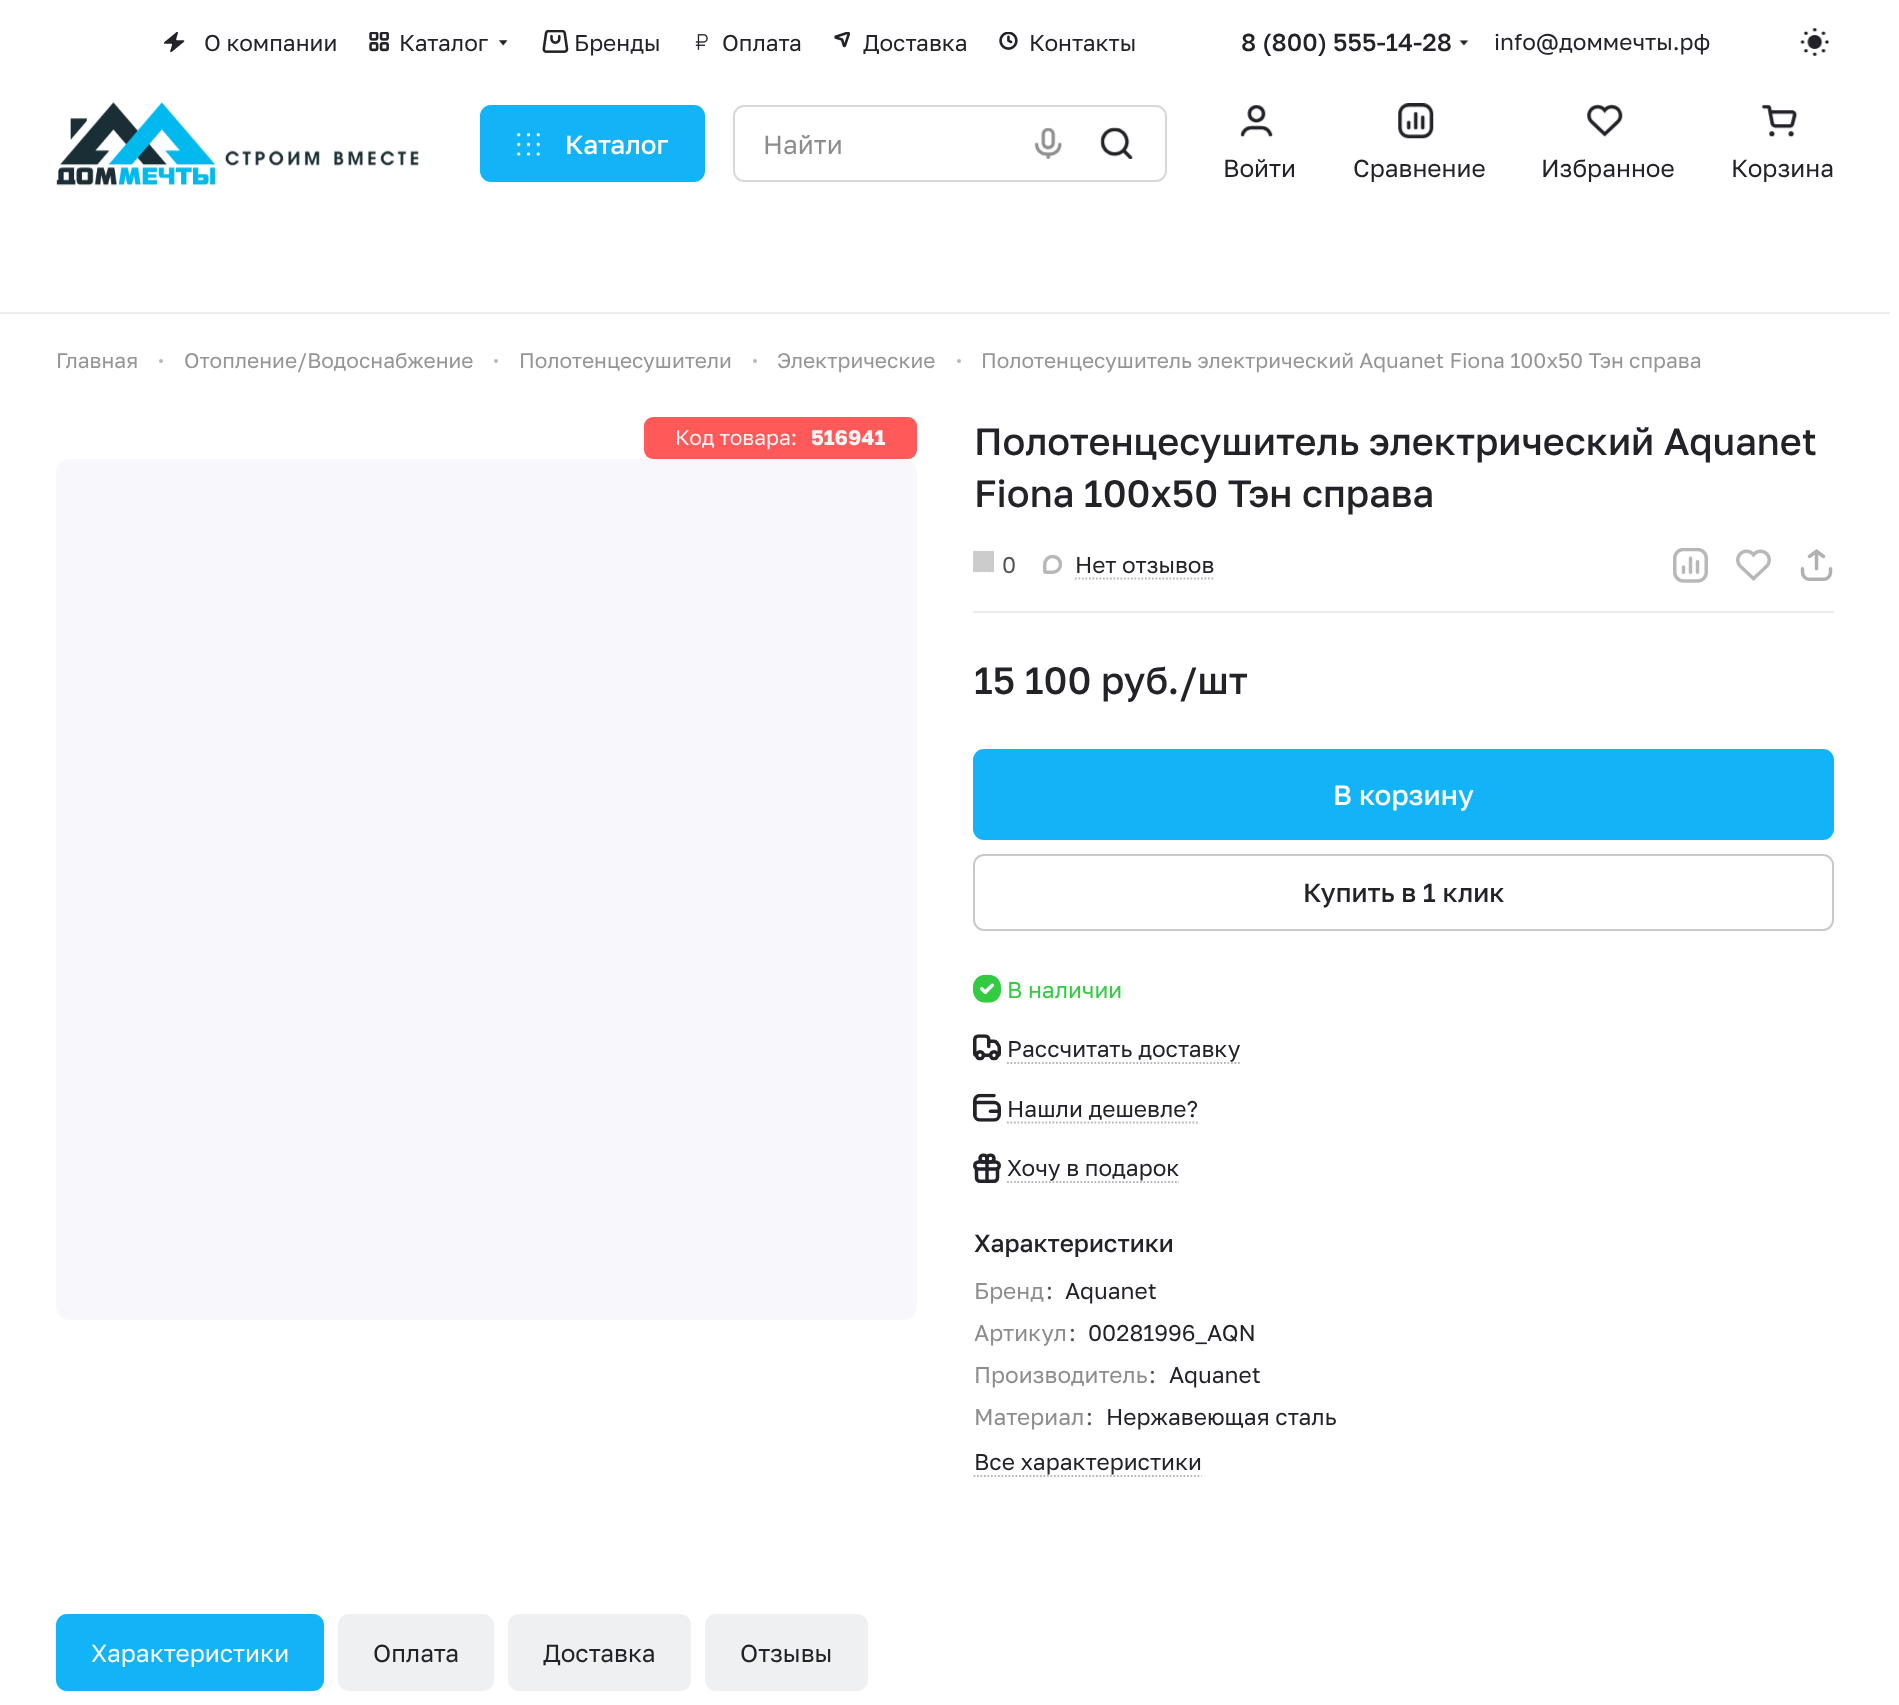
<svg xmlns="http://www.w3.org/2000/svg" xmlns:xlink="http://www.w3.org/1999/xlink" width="1899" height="1705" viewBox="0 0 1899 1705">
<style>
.cls-1{font:22.75px Golos Text;fill:#222228}
.cls-2{font:500 24.5px Golos Text;fill:#222228}
.cls-3{font:500 26.25px Golos Text;fill:#ffffff}
.cls-4{font:26.25px Golos Text;fill:#8d8d8d}
.cls-5{font:24.5px Golos Text;fill:#222228}
.cls-6{font:21px Golos Text;fill:#959598}
.cls-7{font:21px Golos Text;fill:#f5f5f7}
.cls-8{font:bold 21px Golos Text;fill:#f5f5f7}
.cls-9{font:500 38px Golos Text;fill:#222228}
.cls-10{font:22.75px Golos Text;fill:#555558}
.cls-11{font:500 28px Golos Text;fill:#ffffff}
.cls-12{font:500 26.25px Golos Text;fill:#222228}
.cls-13{font:22.75px Golos Text;fill:#32cb41}
.cls-14{font:22.75px Golos Text;fill:#8d8d8d}
.cls-15{font:24.5px Golos Text;fill:#ffffff}
</style>
<rect width="100%" height="100%" fill="#ffffff"/>
<rect fill="#ededed" x="0" y="312" width="1890" height="2"/>
<image xlink:href="image0.png" x="164" y="32" width="21" height="21"/>
<image xlink:href="image1.png" x="369" y="32" width="20" height="20"/>
<image xlink:href="image2.png" x="499" y="40" width="9" height="6"/>
<image xlink:href="image3.png" x="542" y="30" width="27" height="23"/>
<image xlink:href="image4.png" x="695" y="34" width="13" height="16"/>
<image xlink:href="image5.png" x="834" y="32" width="16" height="16"/>
<image xlink:href="image6.png" x="999" y="32" width="19" height="18"/>
<image xlink:href="image7.png" x="1459" y="40" width="10" height="6"/>
<image xlink:href="image8.png" x="1800" y="28" width="29" height="28"/>
<image xlink:href="image9.png" x="56" y="102" width="363" height="84"/>
<rect fill="#13b3f8" stroke="#13b3f8" stroke-width="2" x="481" y="106" width="223" height="75" rx="10"/>
<image xlink:href="image10.png" x="517" y="133" width="23" height="24"/>
<rect fill="none" stroke="#d7d8da" stroke-width="2" x="734" y="106" width="432" height="75" rx="10"/>
<image xlink:href="image11.png" x="1034" y="127" width="28" height="32"/>
<image xlink:href="image12.png" x="1100" y="127" width="33" height="32"/>
<image xlink:href="image13.png" x="1240" y="104" width="33" height="33"/>
<image xlink:href="image14.png" x="1398" y="103" width="36" height="36"/>
<image xlink:href="image15.png" x="1587" y="104" width="36" height="33"/>
<image xlink:href="image16.png" x="1762" y="104" width="35" height="33"/>
<circle fill="#b8b8b9" cx="161" cy="361" r="2"/>
<circle fill="#b8b8b9" cx="496" cy="361" r="2"/>
<circle fill="#b8b8b9" cx="755" cy="361" r="2"/>
<circle fill="#b8b8b9" cx="959" cy="361" r="2"/>
<rect fill="#ff5959" x="644" y="417" width="273" height="42" rx="9"/>
<rect fill="#f8f8fc" x="56" y="459" width="861" height="861" rx="14"/>
<image xlink:href="image17.png" x="976" y="572" width="15" height="1"/>
<rect fill="#cccccc" x="973" y="551" width="21" height="21"/>
<image xlink:href="image18.png" x="1043" y="555" width="19" height="19"/>
<path fill="none" stroke="#b8b8ba" stroke-width="1.8" stroke-dasharray="1.75 1.75" d="M1075 578.5H1214.5"/>
<image xlink:href="image19.png" x="1673" y="548" width="35" height="35"/>
<image xlink:href="image20.png" x="1736" y="549" width="35" height="32"/>
<image xlink:href="image21.png" x="1800" y="549" width="33" height="32"/>
<rect fill="#ebecef" x="973" y="611" width="861" height="2"/>
<rect fill="#13b3f8" stroke="#13b3f8" stroke-width="2" x="974" y="750" width="859" height="89" rx="10"/>
<rect fill="none" stroke="#c9c9ca" stroke-width="2" x="974" y="855" width="859" height="75" rx="10"/>
<image xlink:href="image22.png" x="973" y="974" width="28" height="29"/>
<image xlink:href="image23.png" x="973" y="1034" width="28" height="27"/>
<path fill="none" stroke="#b8b8ba" stroke-width="1.8" stroke-dasharray="1.75 1.75" d="M1007 1063H1240"/>
<image xlink:href="image24.png" x="973" y="1093" width="28" height="29"/>
<path fill="none" stroke="#b8b8ba" stroke-width="1.8" stroke-dasharray="1.75 1.75" d="M1007 1122.5H1198"/>
<image xlink:href="image25.png" x="973" y="1153" width="28" height="30"/>
<path fill="none" stroke="#b8b8ba" stroke-width="1.8" stroke-dasharray="1.75 1.75" d="M1007 1182H1179"/>
<path fill="none" stroke="#b8b8ba" stroke-width="1.8" stroke-dasharray="1.75 1.75" d="M973.5 1476H1201.5"/>
<rect fill="#13b3f8" x="56" y="1614" width="268" height="77" rx="11"/>
<rect fill="#eff0f2" x="338" y="1614" width="156" height="77" rx="11"/>
<rect fill="#eff0f2" x="508" y="1614" width="183" height="77" rx="11"/>
<rect fill="#eff0f2" x="705" y="1614" width="163" height="77" rx="11"/>
<text class="cls-1" x="204" y="51">О компании</text>
<text class="cls-1" x="399" y="51">Каталог</text>
<text class="cls-1" x="574" y="51">Бренды</text>
<text class="cls-1" x="722" y="51">Оплата</text>
<text class="cls-1" x="863" y="51">Доставка</text>
<text class="cls-1" x="1029" y="51">Контакты</text>
<text class="cls-2" x="1241" y="51">8 (800) 555-14-28</text>
<text class="cls-1" x="1494" y="50">info@доммечты.рф</text>
<text class="cls-3" x="565" y="154">Каталог</text>
<text class="cls-4" x="763" y="154">Найти</text>
<text class="cls-5" x="1223" y="177">Войти</text>
<text class="cls-5" x="1353" y="177">Сравнение</text>
<text class="cls-5" x="1541" y="177">Избранное</text>
<text class="cls-5" x="1731" y="177">Корзина</text>
<text class="cls-6" x="56" y="368">Главная</text>
<text class="cls-6" x="184" y="368">Отопление/Водоснабжение</text>
<text class="cls-6" x="519" y="368">Полотенцесушители</text>
<text class="cls-6" x="777" y="368">Электрические</text>
<text class="cls-6" x="981" y="368">Полотенцесушитель электрический Aquanet Fiona 100х50 Тэн справа</text>
<text class="cls-7" x="675" y="445">Код товара:</text>
<text class="cls-8" x="811" y="445">516941</text>
<text class="cls-9"><tspan x="974" y="455">Полотенцесушитель электрический Aquanet</tspan><tspan x="974" y="507">Fiona 100х50 Тэн справа</tspan></text>
<text class="cls-10" x="1002" y="573">0</text>
<text class="cls-1" x="1075" y="573">Нет отзывов</text>
<text class="cls-9" x="974" y="694">15 100 руб./шт</text>
<text class="cls-11" x="1333" y="805">В корзину</text>
<text class="cls-12" x="1303" y="902">Купить в 1 клик</text>
<text class="cls-13" x="1007" y="998">В наличии</text>
<text class="cls-1" x="1007" y="1057">Рассчитать доставку</text>
<text class="cls-1" x="1007" y="1117">Нашли дешевле?</text>
<text class="cls-1" x="1007" y="1176">Хочу в подарок</text>
<text class="cls-2" x="974" y="1252">Характеристики</text>
<text class="cls-14" x="974" y="1299">Бренд</text>
<text class="cls-10" x="1046" y="1299">:</text>
<text class="cls-1" x="1065" y="1299">Aquanet</text>
<text class="cls-14" x="974" y="1341">Артикул</text>
<text class="cls-10" x="1069" y="1341">:</text>
<text class="cls-1" x="1088" y="1341">00281996_AQN</text>
<text class="cls-14" x="974" y="1383">Производитель</text>
<text class="cls-10" x="1149" y="1383">:</text>
<text class="cls-1" x="1169" y="1383">Aquanet</text>
<text class="cls-14" x="974" y="1425">Материал</text>
<text class="cls-10" x="1086" y="1425">:</text>
<text class="cls-1" x="1106" y="1425">Нержавеющая сталь</text>
<text class="cls-1" x="974" y="1470">Все характеристики</text>
<text class="cls-15" x="91" y="1662">Характеристики</text>
<text class="cls-5" x="373" y="1662">Оплата</text>
<text class="cls-5" x="543" y="1662">Доставка</text>
<text class="cls-5" x="740" y="1662">Отзывы</text>
</svg>
